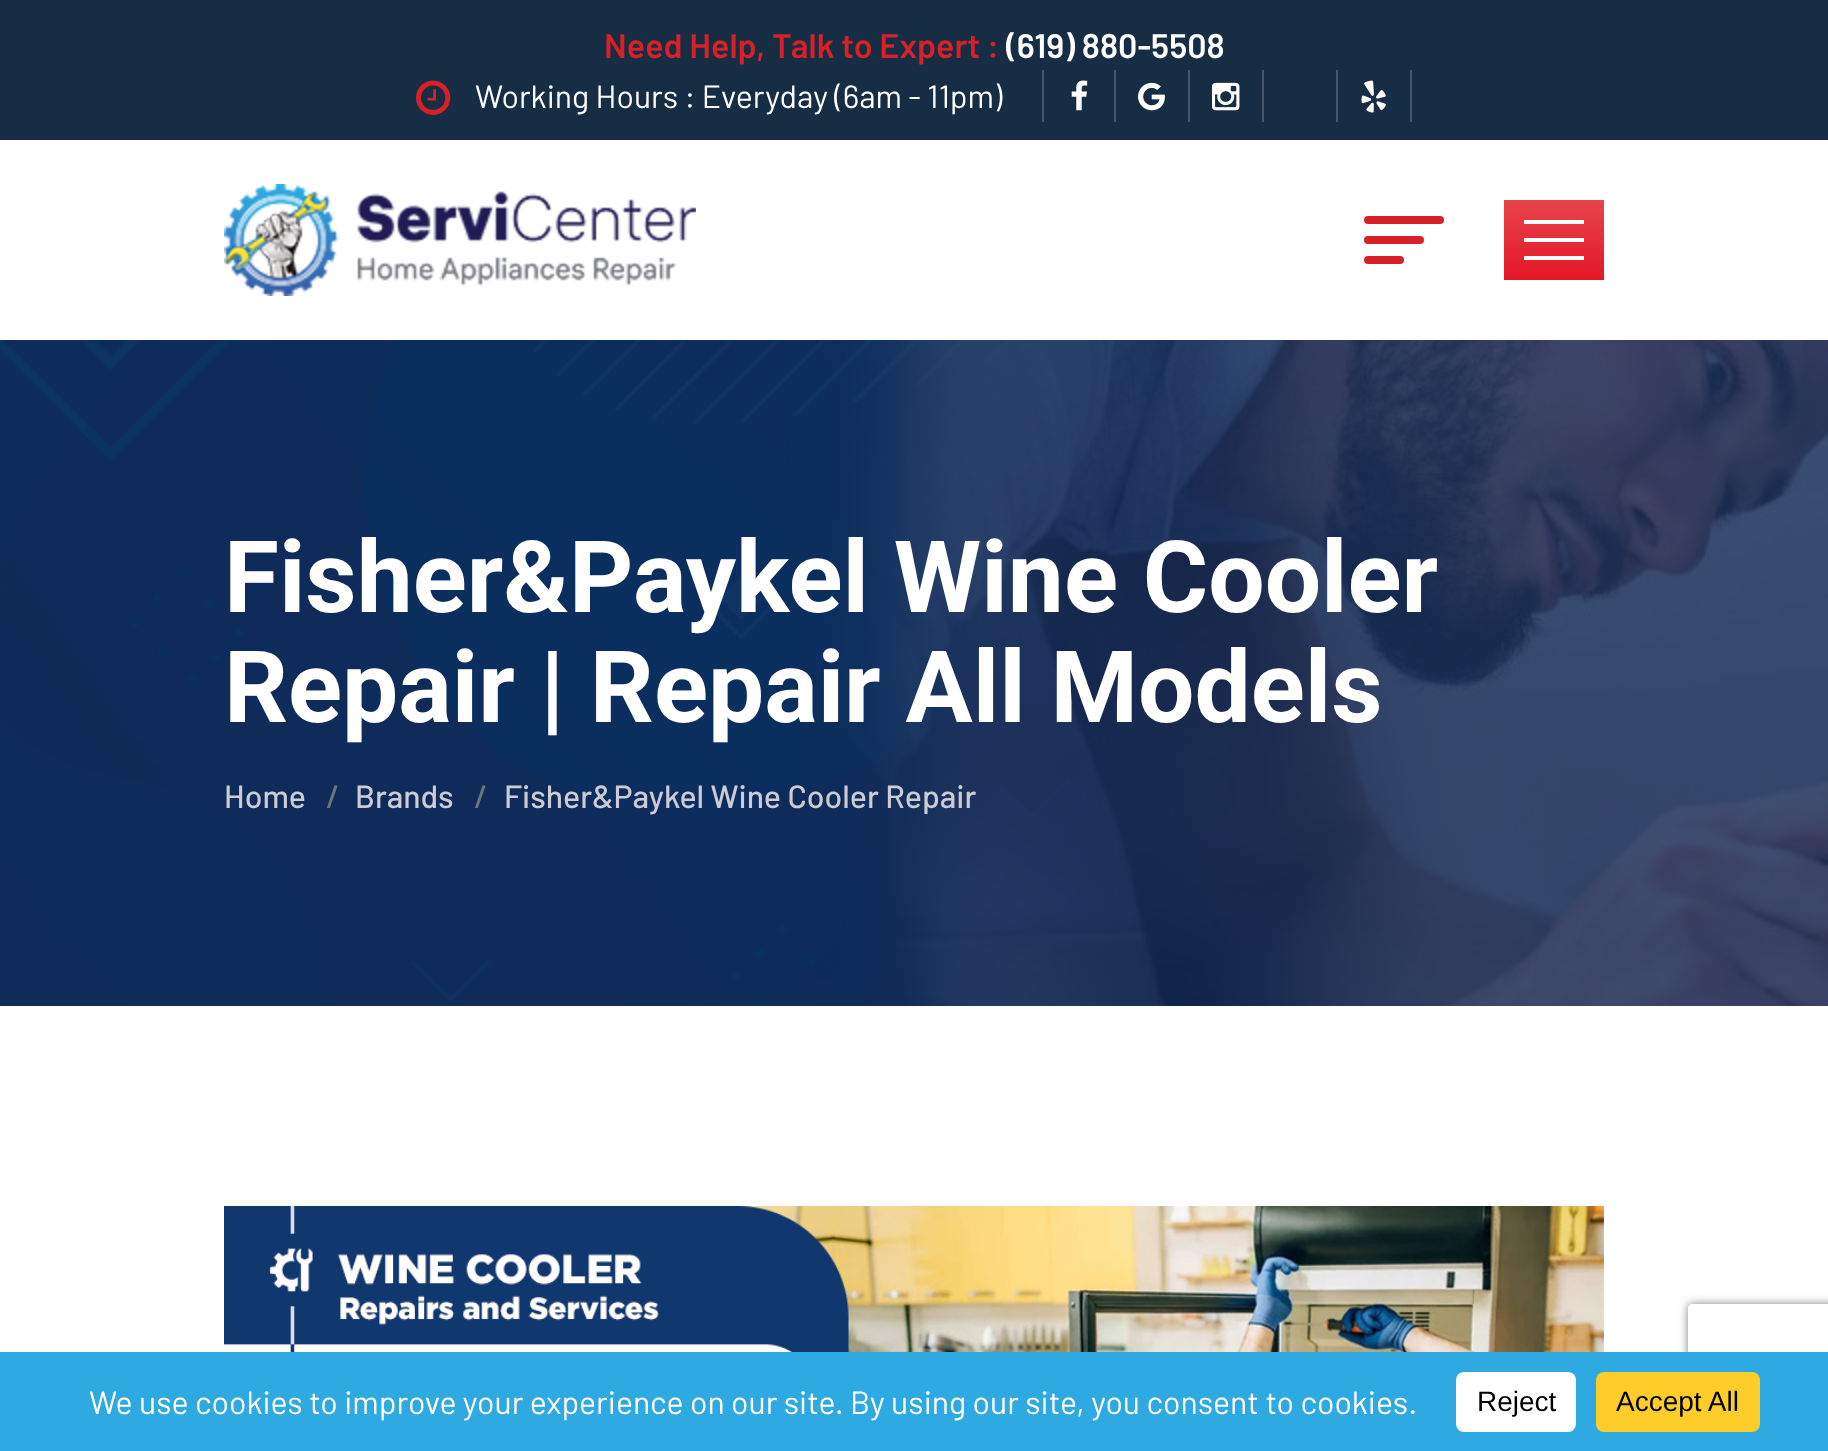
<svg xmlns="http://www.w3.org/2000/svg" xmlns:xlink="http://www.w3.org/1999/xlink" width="1828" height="1451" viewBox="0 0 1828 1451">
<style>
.cls-1{font:600 34px Barlow;fill:#d72027}
.cls-2{font:600 34px Barlow;fill:#ffffff}
.cls-3{font:32px Barlow;fill:#ffffff}
.cls-4{font:bold 100px Roboto;fill:#ffffff}
.cls-5{font:500 32px Barlow;fill:#cccbd6}
.cls-6{font:500 32px Barlow;fill:#6c757d}
.cls-7{font:28px Liberation Sans;fill:#000000}
</style>
<defs>
<linearGradient id="g1" gradientUnits="userSpaceOnUse" x1="1554" y1="280" x2="1554" y2="200"><stop offset="0" stop-color="#e41726"/><stop offset="0.99" stop-color="#e7444a"/></linearGradient>
<clipPath id="clip1"><path d="M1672 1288H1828V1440H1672ZM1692 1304H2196C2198 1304 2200 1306 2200 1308V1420C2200 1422 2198 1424 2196 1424H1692C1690 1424 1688 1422 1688 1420V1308C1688 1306 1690 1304 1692 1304Z" clip-rule="evenodd"/></clipPath>
</defs>
<rect width="100%" height="100%" fill="#ffffff"/>
<rect fill="#162d44" x="0" y="0" width="1828" height="140"/>
<image xlink:href="image0.png" x="416" y="80" width="35" height="35"/>
<rect fill="#455769" x="1114" y="70" width="2" height="52"/>
<rect fill="#455769" x="1042" y="70" width="2" height="52"/>
<image xlink:href="image1.png" x="1071" y="80" width="17" height="31"/>
<rect fill="#455769" x="1188" y="70" width="2" height="52"/>
<image xlink:href="image2.png" x="1138" y="82" width="27" height="29"/>
<rect fill="#455769" x="1262" y="70" width="2" height="52"/>
<image xlink:href="image3.png" x="1212" y="82" width="28" height="29"/>
<rect fill="#455769" x="1336" y="70" width="2" height="52"/>
<rect fill="#455769" x="1410" y="70" width="2" height="52"/>
<image xlink:href="image4.png" x="1361" y="80" width="25" height="33"/>
<image xlink:href="image5.png" x="224" y="184" width="472" height="112"/>
<rect fill="#d72027" x="1364" y="216" width="80" height="8" rx="4"/>
<rect fill="#d72027" x="1364" y="236" width="60" height="8" rx="4"/>
<rect fill="#d72027" x="1364" y="256" width="40" height="8" rx="4"/>
<rect fill="url(#g1)" x="1504" y="200" width="100" height="80"/>
<rect fill="#ffffff" x="1524" y="220" width="60" height="4"/>
<rect fill="#ffffff" x="1524" y="238" width="60" height="4"/>
<rect fill="#ffffff" x="1524" y="256" width="60" height="4"/>
<image xlink:href="image6.png" x="0" y="340" width="1828" height="666"/>
<image xlink:href="image7.png" x="224" y="1206" width="1380" height="146"/>
<g clip-path="url(#clip1)">
<rect fill="#808080" filter="blur(5px)" x="1688" y="1304" width="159" height="120" rx="4"/>
</g>
<rect fill="#2ea9e1" x="0" y="1352" width="1828" height="99"/>
<rect fill="#ffffff" x="1456" y="1372" width="120" height="60" rx="8"/>
<rect fill="#ffcd2a" x="1596" y="1372" width="164" height="60" rx="8"/>
<text class="cls-1" x="604" y="58">Need Help, Talk to Expert :</text>
<text class="cls-2" x="1006" y="58">(619) 880-5508</text>
<text class="cls-3" x="475" y="108">Working Hours : Everyday (6am - 11pm)</text>
<text class="cls-4"><tspan x="224" y="612">Fisher&amp;Paykel Wine Cooler</tspan><tspan x="224" y="722">Repair | Repair All Models</tspan></text>
<text class="cls-5" x="224" y="808">Home</text>
<text class="cls-6" x="326" y="808">/</text>
<text class="cls-5" x="355" y="808">Brands</text>
<text class="cls-6" x="474" y="808">/</text>
<text class="cls-5" x="504" y="808">Fisher&amp;Paykel Wine Cooler Repair</text>
<text class="cls-3" x="89" y="1414">We use cookies to improve your experience on our site. By using our site, you consent to cookies.</text>
<text class="cls-7" x="1477" y="1411">Reject</text>
<text class="cls-7" x="1616" y="1411">Accept All</text>
</svg>
